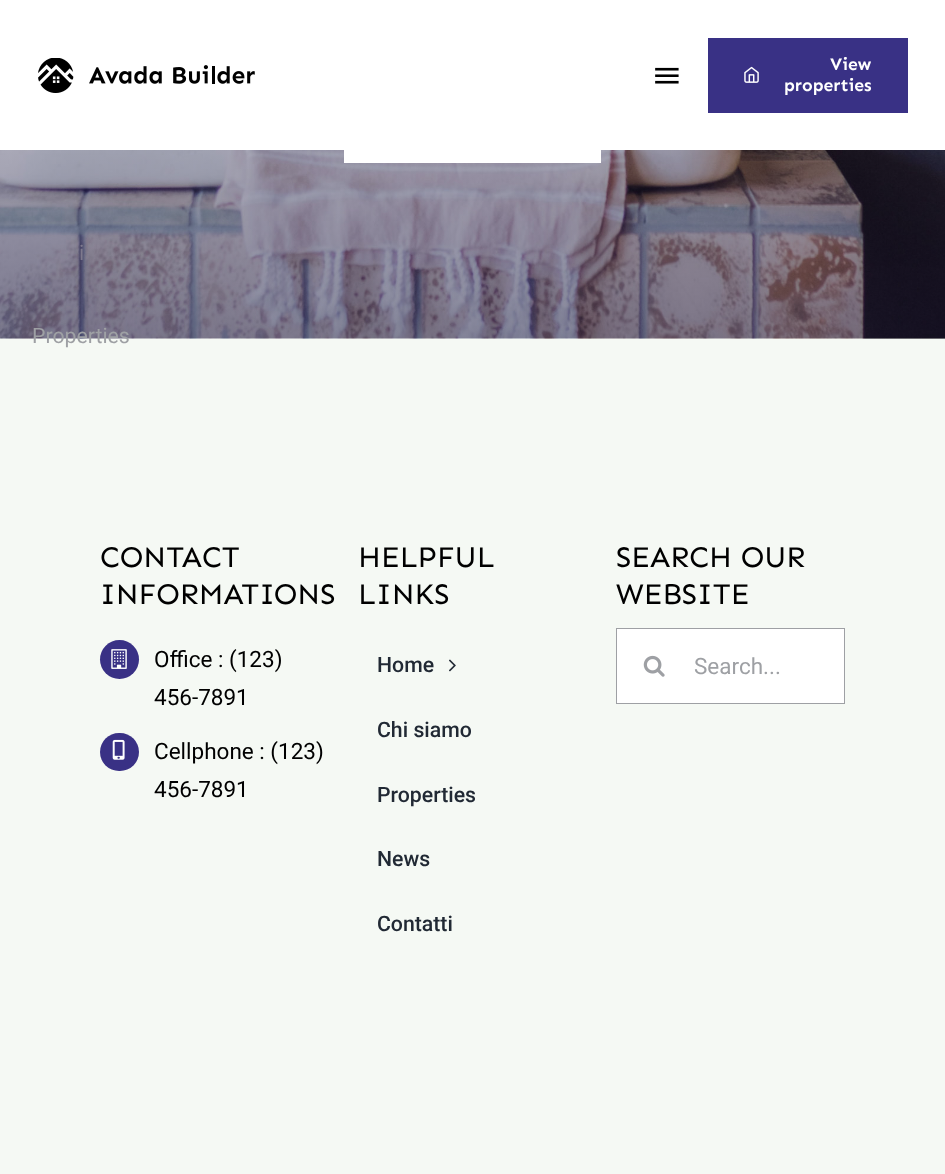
<svg xmlns="http://www.w3.org/2000/svg" xmlns:xlink="http://www.w3.org/1999/xlink" width="945" height="1174" viewBox="0 0 945 1174">
<style>
.cls-1{font:bold 17.5px Sen;fill:#ffffff}
.cls-2{font:21.25px Roboto;fill:#7e798d}
.cls-3{font:21.25px Roboto;fill:#9ea0a4}
.cls-4{font:30px Sen;fill:#000000}
.cls-5{font:22.5px Roboto;fill:#000000}
.cls-6{font:500 21.25px Roboto;fill:#212934}
.cls-7{font:22.5px Roboto;fill:#9ea0a4}
</style>
<rect width="100%" height="100%" fill="#f5f9f4"/>
<rect fill="#ffffff" x="0" y="0" width="945" height="150"/>
<image xlink:href="image0.png" x="38" y="58" width="217" height="35"/>
<rect fill="#393185" x="708" y="38" width="200" height="75"/>
<image xlink:href="image1.png" x="744" y="66" width="15" height="17"/>
<image xlink:href="image2.png" x="655" y="67" width="24" height="17"/>
<image xlink:href="image3.png" x="0" y="150" width="945" height="189"/>
<rect fill="#ffffff" x="344" y="150" width="257" height="13"/>
<circle fill="#393185" cx="119.5" cy="659.5" r="19.5"/>
<image xlink:href="image4.png" x="111" y="649" width="16" height="20"/>
<rect fill="#393185" x="100" y="733" width="39" height="38" rx="19"/>
<image xlink:href="image5.png" x="112" y="739" width="13" height="21"/>
<image xlink:href="image6.png" x="449" y="659" width="7" height="13"/>
<rect fill="#ffffff" stroke="#9ea0a4" x="616.5" y="628.5" width="228" height="75"/>
<image xlink:href="image7.png" x="643" y="655" width="22" height="22"/>
<text class="cls-1" x="830" y="70">View</text>
<text class="cls-1" x="784" y="91">properties</text>
<text class="cls-2" x="79" y="260">i</text>
<text class="cls-3" x="32" y="343">Properties</text>
<text class="cls-4"><tspan x="100" y="567">CONTACT</tspan><tspan x="100" y="604">INFORMATIONS</tspan></text>
<text class="cls-5"><tspan x="154" y="667">Office : (123)</tspan><tspan x="154" y="705">456-7891</tspan></text>
<text class="cls-5"><tspan x="154" y="759">Cellphone : (123)</tspan><tspan x="154" y="797">456-7891</tspan></text>
<text class="cls-4"><tspan x="358" y="567">HELPFUL</tspan><tspan x="358" y="604">LINKS</tspan></text>
<text class="cls-6" x="377" y="672">Home</text>
<text class="cls-6" x="377" y="737">Chi siamo</text>
<text class="cls-6" x="377" y="802">Properties</text>
<text class="cls-6" x="377" y="866">News</text>
<text class="cls-6" x="377" y="931">Contatti</text>
<text class="cls-4"><tspan x="616" y="567">SEARCH OUR</tspan><tspan x="616" y="604">WEBSITE</tspan></text>
<text class="cls-7" x="694" y="674">Search...</text>
</svg>
